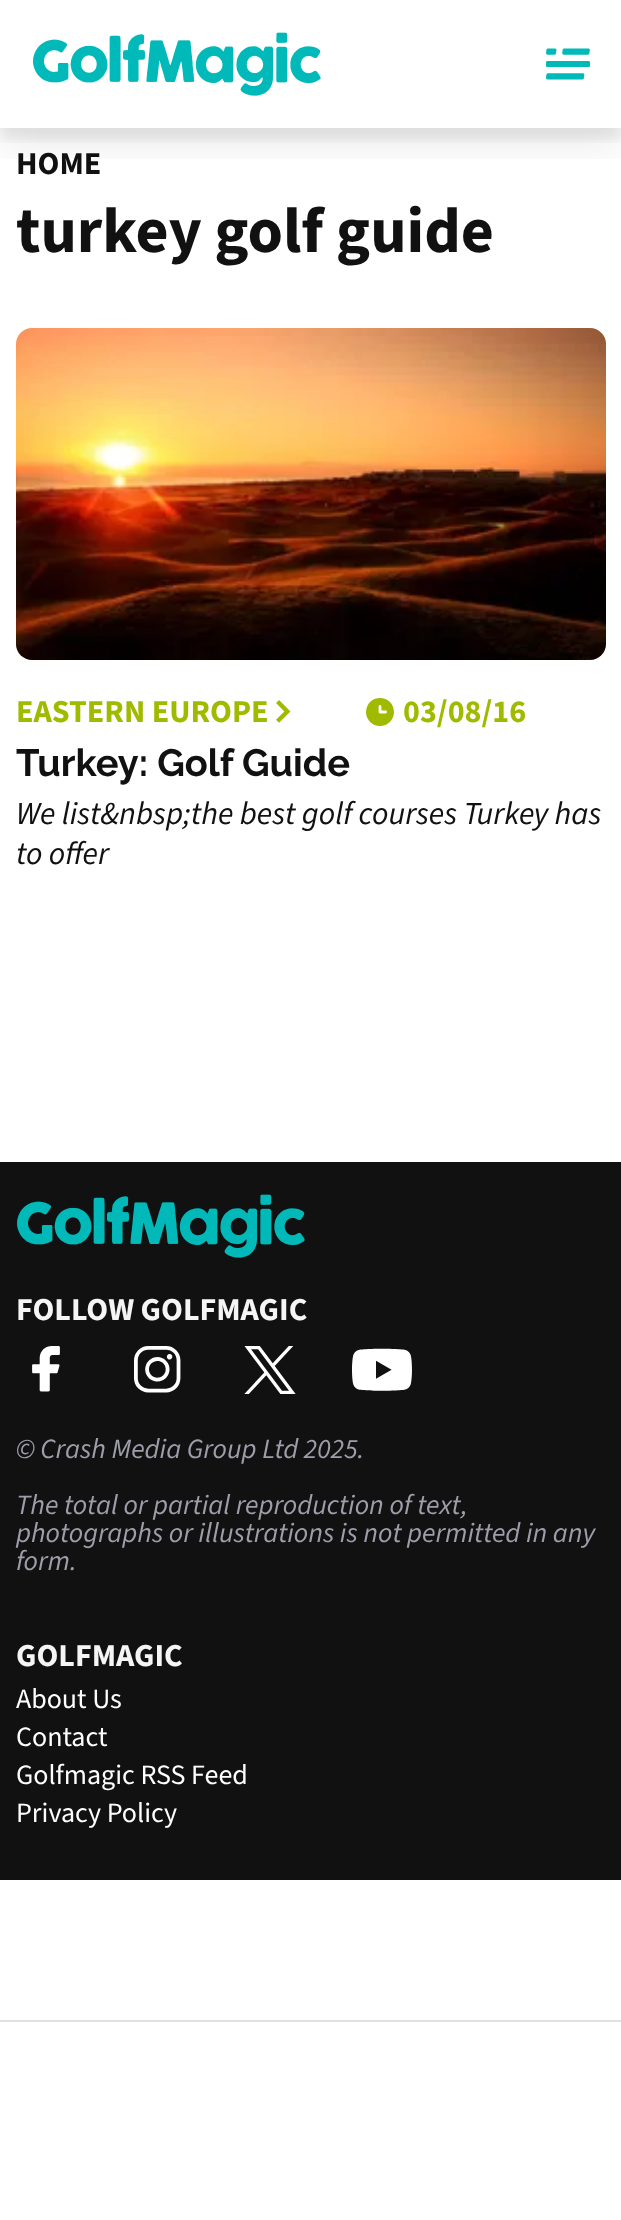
<svg xmlns="http://www.w3.org/2000/svg" xmlns:xlink="http://www.w3.org/1999/xlink" width="621" height="2220" viewBox="0 0 621 2220">
<style>
.cls-1{font:bold 32px 'Source Sans 3';fill:#111111}
.cls-2{font:bold 64px 'Source Sans 3';fill:#111111}
.cls-3{font:bold 32px 'Source Sans 3';fill:#a0ba00}
.cls-4{font:bold 38px Raleway;fill:#111111}
.cls-5{font:italic 32px 'Source Sans 3';fill:#111111}
.cls-6{font:bold 32px 'Source Sans 3';fill:#f5f5f5}
.cls-7{font:italic 28px 'Source Sans 3';fill:#9d9eaa}
.cls-8{font:28px 'Source Sans 3';fill:#ffffff}
</style>
<defs>
<clipPath id="clip1"><rect x="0" y="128" width="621" height="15"/></clipPath>
<clipPath id="clip2"><rect x="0" y="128" width="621" height="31"/></clipPath>
</defs>
<rect width="100%" height="100%" fill="#ffffff"/>
<g clip-path="url(#clip1)">
<rect fill="#000000" fill-opacity="0.07" filter="blur(6px)" x="0" y="12" width="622" height="128"/>
</g>
<g clip-path="url(#clip2)">
<rect fill="#000000" fill-opacity="0.07" filter="blur(20px)" x="0" y="20" width="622" height="128"/>
</g>
<image xlink:href="image0.png" x="33" y="32" width="288" height="64"/>
<image xlink:href="image1.png" x="546" y="48" width="44" height="32"/>
<rect fill="#f5f5f5" x="16" y="328" width="590" height="332" rx="16"/>
<image xlink:href="image2.png" x="16" y="328" width="590" height="332"/>
<image xlink:href="image3.png" x="276" y="700" width="15" height="23"/>
<image xlink:href="image4.png" x="366" y="698" width="28" height="28"/>
<rect fill="#111111" x="0" y="1162" width="621" height="718"/>
<image xlink:href="image5.png" x="17" y="1194" width="288" height="64"/>
<image xlink:href="image6.png" x="32" y="1346" width="28" height="46"/>
<image xlink:href="image7.png" x="134" y="1346" width="47" height="47"/>
<image xlink:href="image8.png" x="244" y="1346" width="52" height="48"/>
<image xlink:href="image9.png" x="352" y="1348" width="60" height="43"/>
<rect fill="#e0e0e0" x="0" y="2020" width="621" height="2"/>
<text class="cls-1" x="16" y="174">HOME</text>
<text class="cls-2" x="16" y="252">turkey golf guide</text>
<text class="cls-3" x="16" y="722">EASTERN EUROPE</text>
<text class="cls-3" x="403" y="722">03/08/16</text>
<text class="cls-4" x="16" y="776">Turkey: Golf Guide</text>
<text class="cls-5"><tspan x="16" y="824">We list&amp;nbsp;the best golf courses Turkey has</tspan><tspan x="16" y="864">to offer</tspan></text>
<text class="cls-6" x="16" y="1320">FOLLOW GOLFMAGIC</text>
<text class="cls-7" x="16" y="1458">© Crash Media Group Ltd 2025.</text>
<text class="cls-7"><tspan x="16" y="1514">The total or partial reproduction of text,</tspan><tspan x="16" y="1542">photographs or illustrations is not permitted in any</tspan><tspan x="16" y="1570">form.</tspan></text>
<text class="cls-6" x="16" y="1666">GOLFMAGIC</text>
<text class="cls-8"><tspan x="16" y="1708">About Us</tspan><tspan x="16" y="1746">Contact</tspan><tspan x="16" y="1784">Golfmagic RSS Feed</tspan><tspan x="16" y="1822">Privacy Policy</tspan></text>
</svg>
